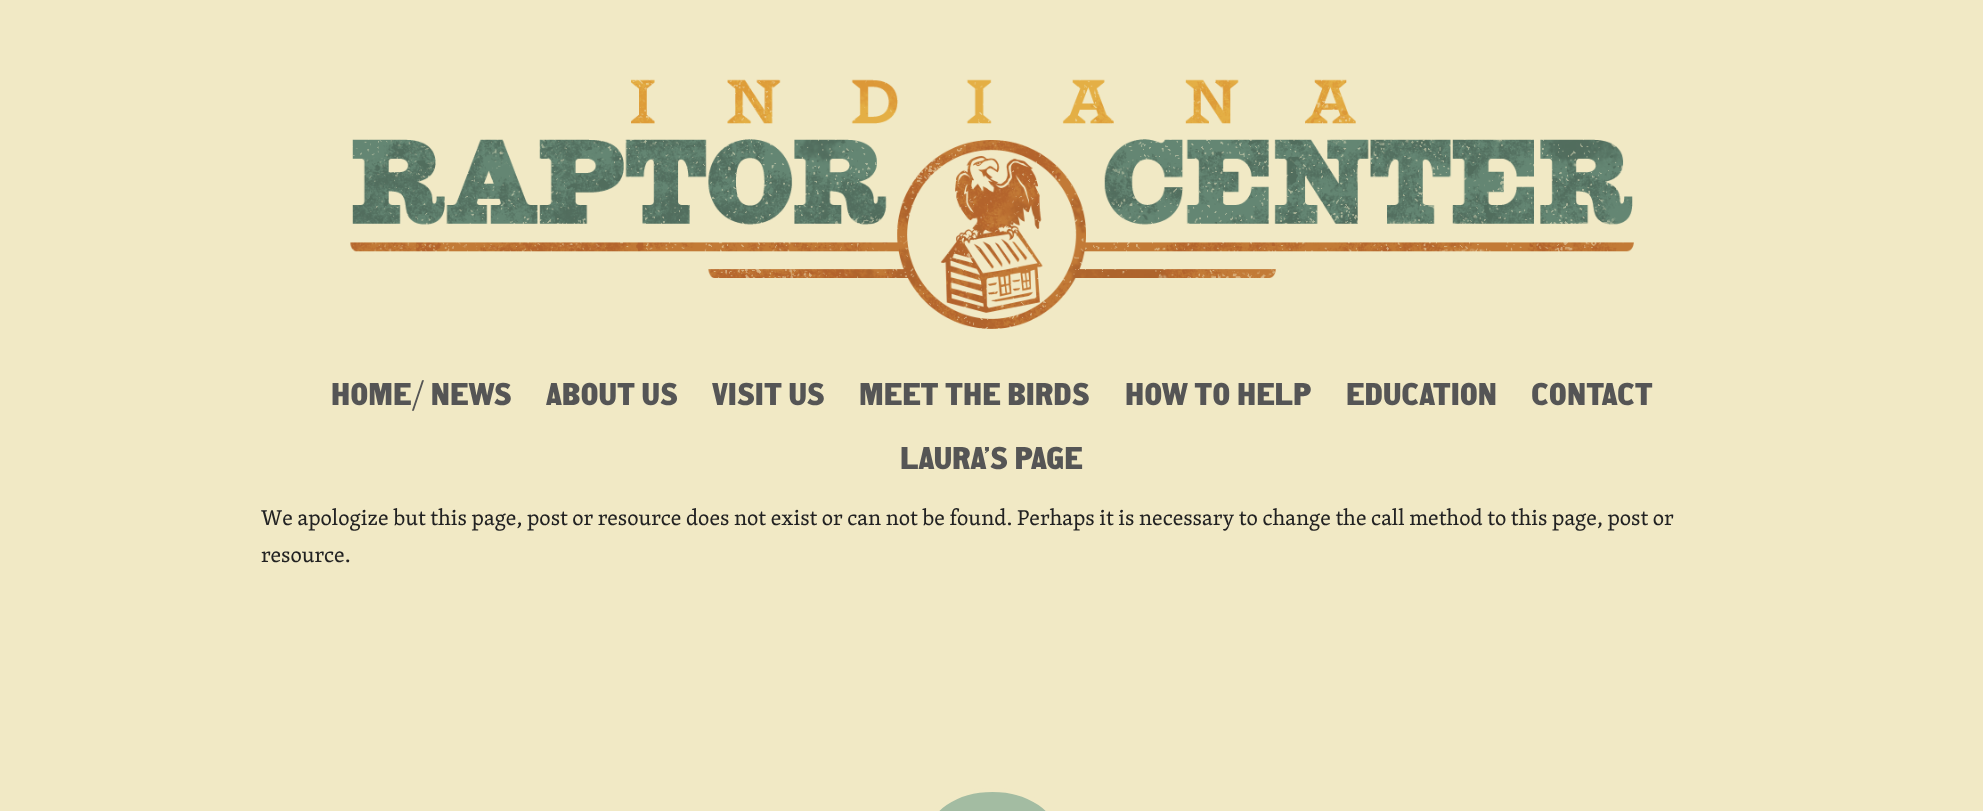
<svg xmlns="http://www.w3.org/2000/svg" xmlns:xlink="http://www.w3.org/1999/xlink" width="1983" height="811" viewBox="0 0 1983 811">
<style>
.cls-1{font:33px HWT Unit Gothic;fill:#555555}
.cls-2{font:22.05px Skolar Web;fill:#222222}
</style>
<rect width="100%" height="100%" fill="#f1e9c5"/>
<image xlink:href="image0.png" x="350" y="79" width="1284" height="250"/>
<rect fill="#a3bca2" stroke="#f1e9c5" stroke-width="4" x="926" y="790" width="133" height="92" rx="66.5"/>
<text class="cls-1" x="331" y="405">HOME/ NEWS</text>
<text class="cls-1" x="546" y="405">ABOUT US</text>
<text class="cls-1" x="712" y="405">VISIT US</text>
<text class="cls-1" x="859" y="405">MEET THE BIRDS</text>
<text class="cls-1" x="1125" y="405">HOW TO HELP</text>
<text class="cls-1" x="1346" y="405">EDUCATION</text>
<text class="cls-1" x="1531" y="405">CONTACT</text>
<text class="cls-1" x="900" y="469">LAURA’S PAGE</text>
<text class="cls-2"><tspan x="261" y="525">We apologize but this page, post or resource does not exist or can not be found. Perhaps it is necessary to change the call method to this page, post or</tspan><tspan x="261" y="562">resource.</tspan></text>
</svg>
